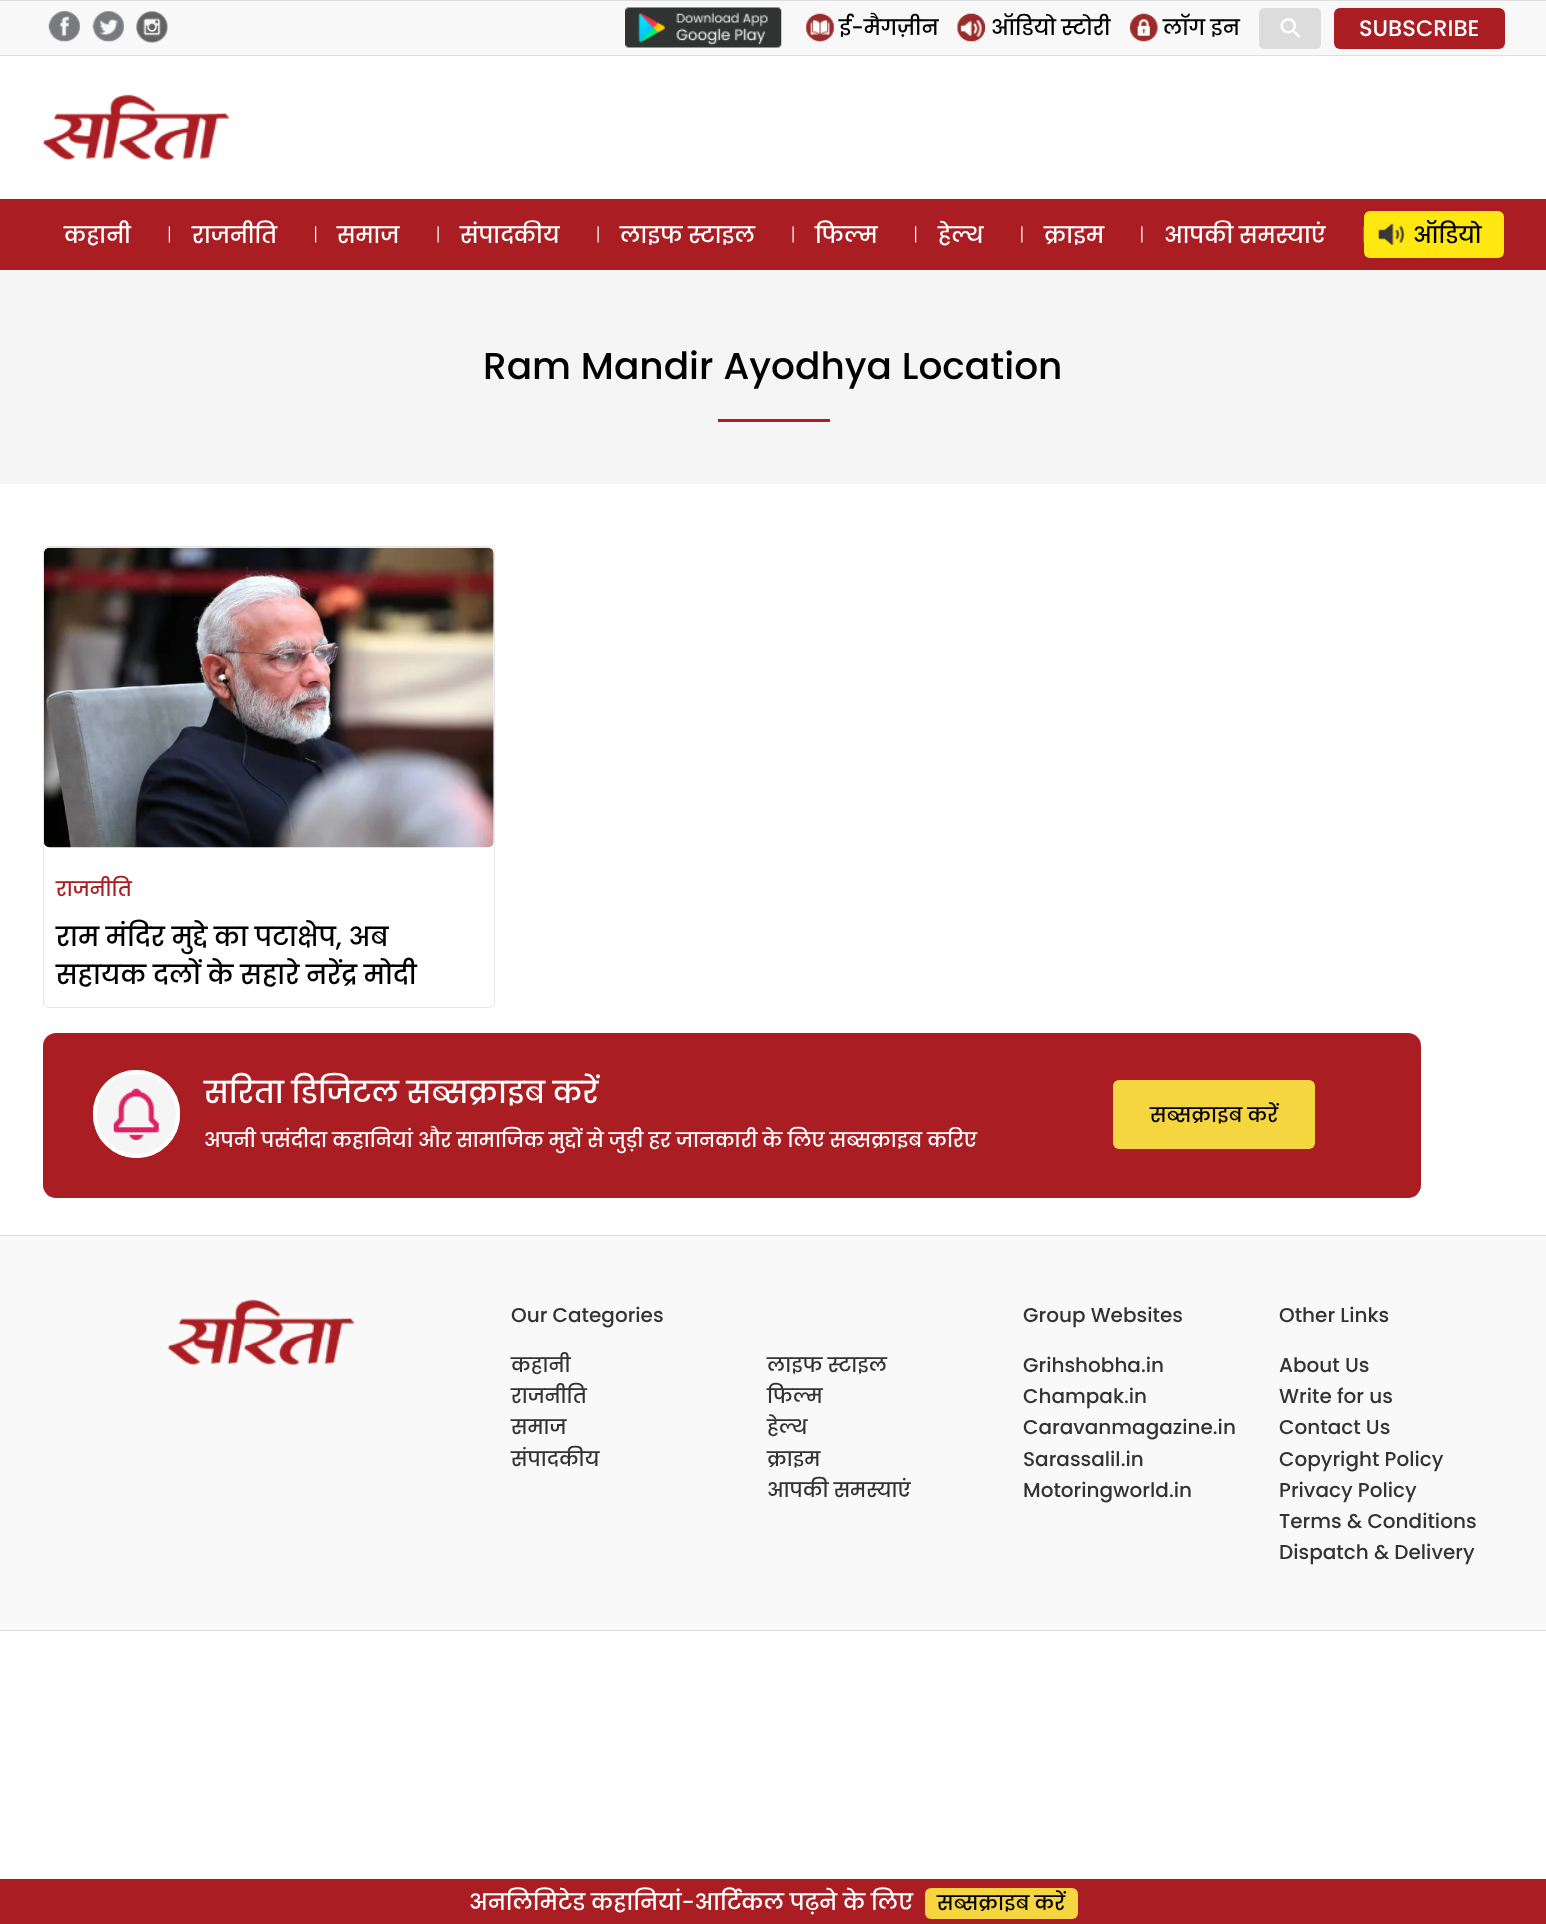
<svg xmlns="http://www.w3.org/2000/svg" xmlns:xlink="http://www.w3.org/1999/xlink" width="1546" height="1924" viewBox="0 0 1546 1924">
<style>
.cls-1{font:500 21.25px Poppins;fill:#000000}
.cls-2{font:28px DejaVu Sans;fill:#ffffff}
.cls-3{font:500 22.5px Poppins;fill:#ffffff}
.cls-4{font:500 22.5px Poppins;fill:#000000}
.cls-5{font:500 37.5px Poppins;fill:#000000}
.cls-6{font:500 20px Poppins;fill:#aa1d23}
.cls-7{font:500 26.25px Poppins;fill:#000000}
.cls-8{font:500 30px Poppins;fill:#ffffff}
.cls-9{font:500 20px Poppins;fill:#000000}
.cls-10{font:500 20px Poppins;fill:#ffffff}
.cls-11{font:500 20px Poppins;fill:#333333}
</style>
<rect width="100%" height="100%" fill="#ffffff"/>
<rect fill="#f8f8f8" x="0" y="1" width="1546" height="54"/>
<rect fill="#dedede" x="0" y="0" width="1546" height="1"/>
<rect fill="#dedede" x="0" y="55" width="1546" height="1"/>
<image xlink:href="image0.png" x="48" y="11" width="32" height="31"/>
<image xlink:href="image1.png" x="92" y="11" width="32" height="31"/>
<image xlink:href="image2.png" x="136" y="11" width="32" height="32"/>
<image xlink:href="image3.png" x="625" y="7" width="157" height="41"/>
<image xlink:href="image4.png" x="806" y="13" width="28" height="29"/>
<image xlink:href="image5.png" x="957" y="13" width="28" height="29"/>
<image xlink:href="image6.png" x="1130" y="13" width="28" height="29"/>
<rect fill="#dcdcdc" x="1259" y="8" width="62" height="41" rx="5"/>
<rect fill="#aa1d23" x="1334" y="8" width="171" height="41" rx="6"/>
<image xlink:href="image7.png" x="42" y="94" width="188" height="66"/>
<rect fill="#aa1d23" x="0" y="199" width="1546" height="71"/>
<image xlink:href="image8.png" x="168" y="226" width="2" height="17"/>
<image xlink:href="image9.png" x="315" y="226" width="2" height="17"/>
<image xlink:href="image10.png" x="437" y="226" width="2" height="17"/>
<image xlink:href="image10.png" x="597" y="226" width="2" height="17"/>
<image xlink:href="image10.png" x="792" y="226" width="2" height="17"/>
<image xlink:href="image9.png" x="915" y="226" width="2" height="17"/>
<image xlink:href="image11.png" x="1021" y="226" width="2" height="17"/>
<image xlink:href="image11.png" x="1141" y="226" width="2" height="17"/>
<image xlink:href="image12.png" x="1363" y="226" width="1" height="17"/>
<rect fill="#ffe712" x="1364" y="211" width="140" height="47" rx="6"/>
<image xlink:href="image13.png" x="1378" y="223" width="26" height="22"/>
<rect fill="#f5f5f5" x="0" y="270" width="1546" height="214"/>
<rect fill="#aa1d23" x="718" y="419" width="112" height="3"/>
<rect fill="none" stroke="#e6e6e6" x="43.5" y="546.5" width="451" height="461" rx="5.5"/>
<image xlink:href="image14.png" x="44" y="547" width="450" height="301"/>
<rect fill="#aa1d23" x="43" y="1033" width="1378" height="165" rx="13"/>
<rect fill="#f5f5f5" x="93" y="1070" width="87" height="88" rx="43.5"/>
<image xlink:href="image15.png" x="113" y="1088" width="46" height="52"/>
<rect fill="none" stroke="#ffffff" stroke-width="4" x="95" y="1072" width="83" height="84" rx="41.5"/>
<rect fill="#f5d540" x="1113" y="1080" width="202" height="69" rx="6"/>
<rect fill="#f9f9f9" x="0" y="1236" width="1546" height="394"/>
<rect fill="#dbdbdb" x="0" y="1235" width="1546" height="1"/>
<rect fill="#dbdbdb" x="0" y="1630" width="1546" height="1"/>
<image xlink:href="image16.png" x="167" y="1299" width="188" height="66"/>
<rect fill="#aa1d23" x="0" y="1879" width="1546" height="45"/>
<rect fill="#f5d540" x="925" y="1888" width="153" height="31" rx="6"/>
<text class="cls-1" x="839" y="35">ई-मैगज़ीन</text>
<text class="cls-1" x="991" y="35">ऑडियो स्टोरी</text>
<text class="cls-1" x="1163" y="35">लॉग इन</text>
<text class="cls-2" x="1290" y="42" transform="rotate(-45 1290 42)">⚲</text>
<text class="cls-3" x="1359" y="36">SUBSCRIBE</text>
<text class="cls-3" x="64" y="243">कहानी</text>
<text class="cls-3" x="192" y="243">राजनीति</text>
<text class="cls-3" x="337" y="243">समाज</text>
<text class="cls-3" x="460" y="243">संपादकीय</text>
<text class="cls-3" x="620" y="243">लाइफ स्टाइल</text>
<text class="cls-3" x="815" y="243">फिल्म</text>
<text class="cls-3" x="938" y="243">हेल्थ</text>
<text class="cls-3" x="1044" y="243">क्राइम</text>
<text class="cls-3" x="1164" y="243">आपकी समस्याएं</text>
<text class="cls-4" x="1413" y="243">ऑडियो</text>
<text class="cls-5" x="483" y="379">Ram Mandir Ayodhya Location</text>
<text class="cls-6" x="56" y="896">राजनीति</text>
<text class="cls-7"><tspan x="56" y="946">राम मंदिर मुद्दे का पटाक्षेप, अब</tspan><tspan x="56" y="984">सहायक दलों के सहारे नरेंद्र मोदी</tspan></text>
<text class="cls-8" x="204" y="1103">सरिता डिजिटल सब्सक्राइब करें</text>
<text class="cls-9" x="1150" y="1122">सब्सक्राइब करें</text>
<text class="cls-10" x="204" y="1147">अपनी पसंदीदा कहानियां और सामाजिक मुद्दों से जुड़ी हर जानकारी के लिए सब्सक्राइब करिए</text>
<text class="cls-11" x="511" y="1322">Our Categories</text>
<text class="cls-11"><tspan x="511" y="1372">कहानी</tspan><tspan x="511" y="1403">राजनीति</tspan><tspan x="511" y="1434">समाज</tspan><tspan x="511" y="1466">संपादकीय</tspan></text>
<text class="cls-11"><tspan x="767" y="1372">लाइफ स्टाइल</tspan><tspan x="767" y="1403">फिल्म</tspan><tspan x="767" y="1434">हेल्थ</tspan><tspan x="767" y="1466">क्राइम</tspan><tspan x="767" y="1497">आपकी समस्याएं</tspan></text>
<text class="cls-11" x="1023" y="1322">Group Websites</text>
<text class="cls-11"><tspan x="1023" y="1372">Grihshobha.in</tspan><tspan x="1023" y="1403">Champak.in</tspan><tspan x="1023" y="1434">Caravanmagazine.in</tspan><tspan x="1023" y="1466">Sarassalil.in</tspan><tspan x="1023" y="1497">Motoringworld.in</tspan></text>
<text class="cls-11" x="1279" y="1322">Other Links</text>
<text class="cls-11"><tspan x="1279" y="1372">About Us</tspan><tspan x="1279" y="1403">Write for us</tspan><tspan x="1279" y="1434">Contact Us</tspan><tspan x="1279" y="1466">Copyright Policy</tspan><tspan x="1279" y="1497">Privacy Policy</tspan><tspan x="1279" y="1528">Terms &amp; Conditions</tspan><tspan x="1279" y="1559">Dispatch &amp; Delivery</tspan></text>
<text class="cls-3" x="469" y="1910">अनलिमिटेड कहानियां-आर्टिकल पढ़ने के लिए</text>
<text class="cls-9" x="937" y="1910">सब्सक्राइब करें</text>
</svg>
